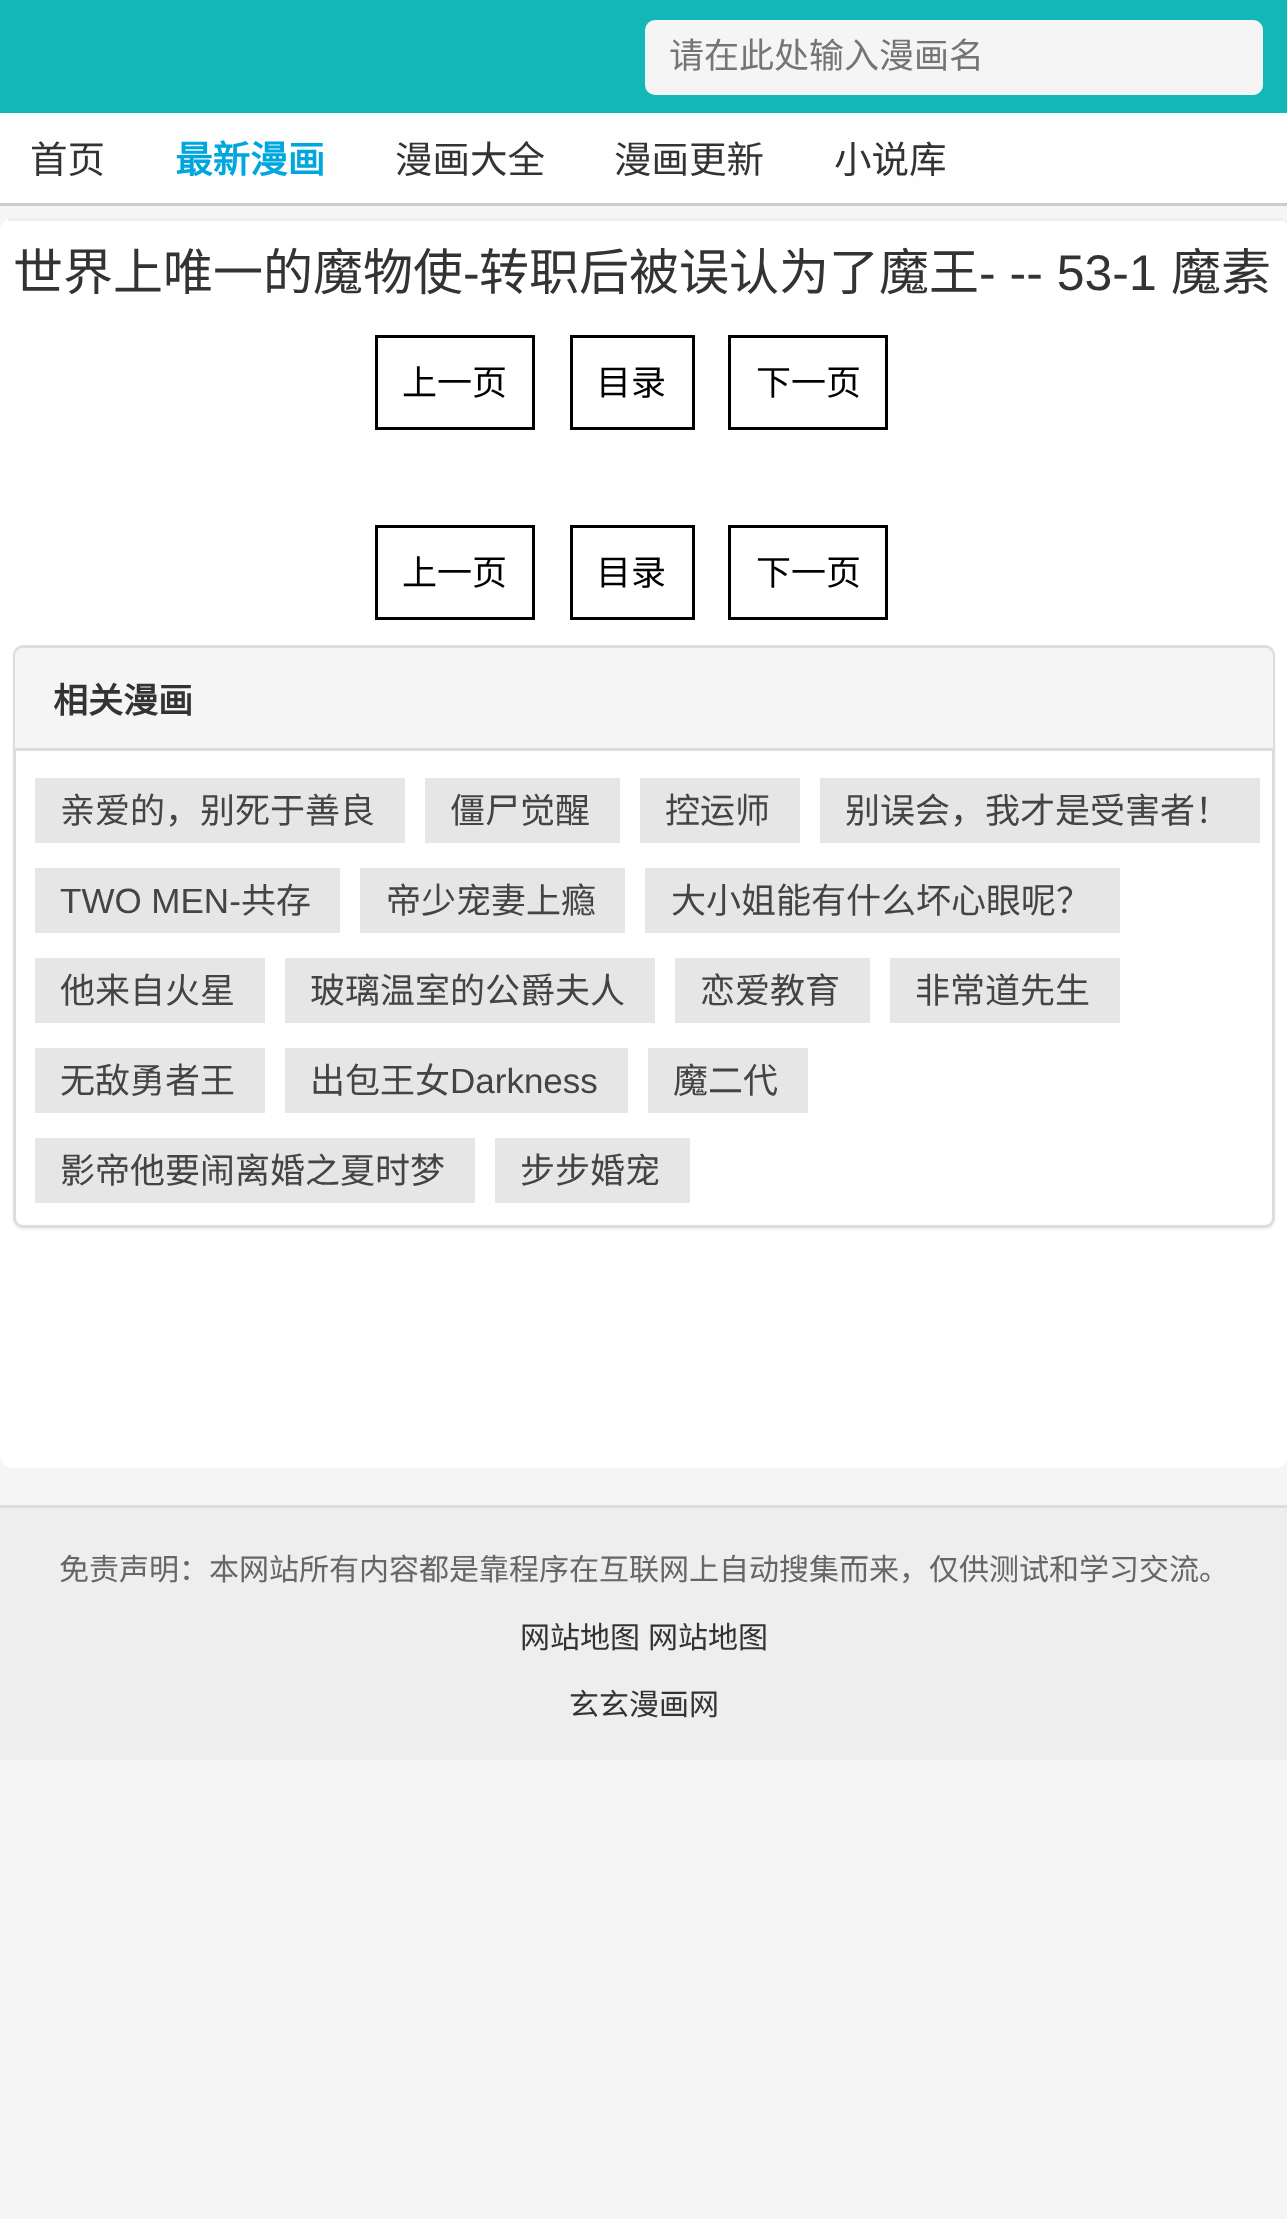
<svg xmlns="http://www.w3.org/2000/svg" xmlns:xlink="http://www.w3.org/1999/xlink" width="1287" height="2219" viewBox="0 0 1287 2219">
<style>
.cls-1{font:35px Noto Sans CJK SC;fill:#757575}
.cls-2{font:37.5px Noto Sans CJK SC;fill:#333333}
.cls-3{font:bold 37.5px Noto Sans CJK SC;fill:#00a6de}
.cls-4{font:50px Noto Sans CJK SC;fill:#333333}
.cls-5{font:50px Liberation Sans;fill:#333333}
.cls-6{font:35px Noto Sans CJK SC;fill:#000000}
.cls-7{font:bold 35px Noto Sans CJK SC;fill:#333333}
.cls-8{font:35px Noto Sans CJK SC;fill:#444444}
.cls-9{font:35px Liberation Sans;fill:#444444}
.cls-10{font:30px Noto Sans CJK SC;fill:#666666}
.cls-11{font:30px Noto Sans CJK SC;fill:#333333}
</style>
<rect width="100%" height="100%" fill="#f6f5f6"/>
<rect fill="#14b7b7" x="0" y="0" width="1287" height="113"/>
<path fill="#f5f5f5" stroke="#f5f5f5" stroke-width="3" d="M655 21.5H1173.5V93.5H655C650.5 93.5 646.5 89.5 646.5 85V30C646.5 25.5 650.5 21.5 655 21.5Z"/>
<path fill="#f5f5f5" d="M1175 20H1253C1258.5 20 1263 24.5 1263 30V85C1263 90.5 1258.5 95 1253 95H1175Z"/>
<rect fill="#fefefe" x="0" y="113" width="1287" height="90"/>
<rect fill="#cccccc" x="0" y="203" width="1287" height="3"/>
<rect fill="#ffffff" x="0" y="218" width="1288" height="1250" rx="13"/>
<rect fill="#eeeeee" x="8" y="218" width="1275" height="3"/>
<rect fill="none" stroke="#000000" stroke-width="3" x="376.5" y="336.5" width="157" height="92"/>
<rect fill="none" stroke="#000000" stroke-width="3" x="571.5" y="336.5" width="122" height="92"/>
<rect fill="none" stroke="#000000" stroke-width="3" x="729.5" y="336.5" width="157" height="92"/>
<rect fill="none" stroke="#000000" stroke-width="3" x="376.5" y="526.5" width="157" height="92"/>
<rect fill="none" stroke="#000000" stroke-width="3" x="571.5" y="526.5" width="122" height="92"/>
<rect fill="none" stroke="#000000" stroke-width="3" x="729.5" y="526.5" width="157" height="92"/>
<rect fill="#000000" fill-opacity="0.05" filter="blur(1px)" x="13" y="648" width="1262" height="582" rx="10"/>
<rect fill="#ffffff" stroke="#dddddd" stroke-width="3" x="14.5" y="646.5" width="1259" height="580" rx="8.5"/>
<path fill="#f5f5f5" d="M23 648H1265C1269.5 648 1273 651.5 1273 656V750H15V656C15 651.5 18.5 648 23 648Z"/>
<rect fill="#dddddd" x="15" y="748" width="1258" height="3"/>
<rect fill="#e6e6e6" x="35" y="778" width="370" height="65"/>
<rect fill="#e6e6e6" x="425" y="778" width="195" height="65"/>
<rect fill="#e6e6e6" x="640" y="778" width="160" height="65"/>
<rect fill="#e6e6e6" x="820" y="778" width="440" height="65"/>
<rect fill="#e6e6e6" x="35" y="868" width="305" height="65"/>
<rect fill="#e6e6e6" x="360" y="868" width="265" height="65"/>
<rect fill="#e6e6e6" x="645" y="868" width="475" height="65"/>
<rect fill="#e6e6e6" x="35" y="958" width="230" height="65"/>
<rect fill="#e6e6e6" x="285" y="958" width="370" height="65"/>
<rect fill="#e6e6e6" x="675" y="958" width="195" height="65"/>
<rect fill="#e6e6e6" x="890" y="958" width="230" height="65"/>
<rect fill="#e6e6e6" x="35" y="1048" width="230" height="65"/>
<rect fill="#e6e6e6" x="285" y="1048" width="343" height="65"/>
<rect fill="#e6e6e6" x="648" y="1048" width="160" height="65"/>
<rect fill="#e6e6e6" x="35" y="1138" width="440" height="65"/>
<rect fill="#e6e6e6" x="495" y="1138" width="195" height="65"/>
<rect fill="#eeeeee" x="0" y="1508" width="1287" height="252"/>
<rect fill="#dddddd" x="0" y="1505" width="1287" height="3"/>
<text class="cls-1" x="669" y="68">请在此处输入漫画名</text>
<text class="cls-2" x="30" y="173">首页</text>
<text class="cls-3" x="175" y="173">最新漫画</text>
<text class="cls-2" x="395" y="173">漫画大全</text>
<text class="cls-2" x="614" y="173">漫画更新</text>
<text class="cls-2" x="834" y="173">小说库</text>
<text class="cls-4" x="13" y="290">世界上唯一的魔物使</text>
<text class="cls-5" x="463" y="290">-</text>
<text class="cls-4" x="479" y="290">转职后被误认为了魔王</text>
<text class="cls-5" x="979" y="290">- -- 53-1</text>
<text class="cls-4" x="1171" y="290">魔素</text>
<text class="cls-6" x="402" y="395">上一页</text>
<text class="cls-6" x="596" y="395">目录</text>
<text class="cls-6" x="756" y="395">下一页</text>
<text class="cls-6" x="402" y="585">上一页</text>
<text class="cls-6" x="596" y="585">目录</text>
<text class="cls-6" x="756" y="585">下一页</text>
<text class="cls-7" x="53" y="713">相关漫画</text>
<text class="cls-8" x="60" y="823">亲爱的，别死于善良</text>
<text class="cls-8" x="450" y="823">僵尸觉醒</text>
<text class="cls-8" x="665" y="823">控运师</text>
<text class="cls-8" x="845" y="823">别误会，我才是受害者！</text>
<text class="cls-9" x="60" y="913">TWO MEN-</text>
<text class="cls-8" x="241" y="913">共存</text>
<text class="cls-8" x="386" y="913">帝少宠妻上瘾</text>
<text class="cls-8" x="671" y="913">大小姐能有什么坏心眼呢？</text>
<text class="cls-8" x="60" y="1003">他来自火星</text>
<text class="cls-8" x="310" y="1003">玻璃温室的公爵夫人</text>
<text class="cls-8" x="700" y="1003">恋爱教育</text>
<text class="cls-8" x="915" y="1003">非常道先生</text>
<text class="cls-8" x="60" y="1093">无敌勇者王</text>
<text class="cls-8" x="310" y="1093">出包王女</text>
<text class="cls-9" x="450" y="1093">Darkness</text>
<text class="cls-8" x="673" y="1093">魔二代</text>
<text class="cls-8" x="60" y="1183">影帝他要闹离婚之夏时梦</text>
<text class="cls-8" x="520" y="1183">步步婚宠</text>
<text class="cls-10" x="59" y="1580">免责声明：本网站所有内容都是靠程序在互联网上自动搜集而来，仅供测试和学习交流。</text>
<text class="cls-11" x="520" y="1648">网站地图</text>
<text class="cls-11" x="648" y="1648">网站地图</text>
<text class="cls-11" x="569" y="1715">玄玄漫画网</text>
</svg>
